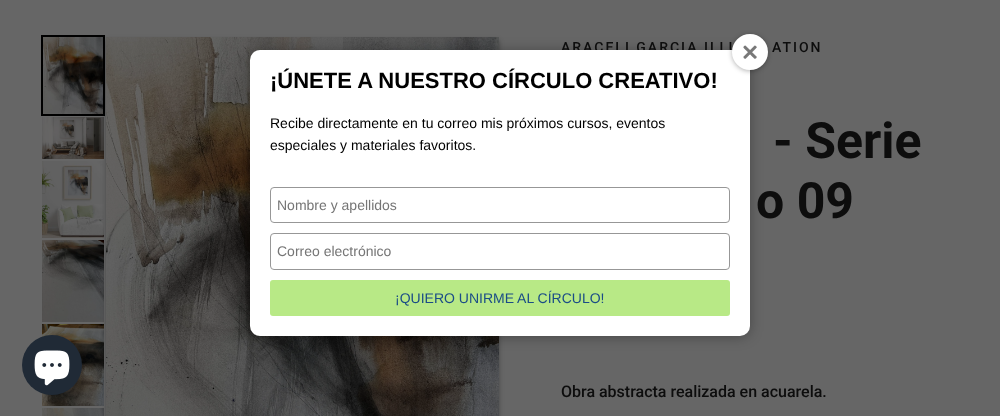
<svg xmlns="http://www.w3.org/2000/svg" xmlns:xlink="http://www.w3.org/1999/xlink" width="1000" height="416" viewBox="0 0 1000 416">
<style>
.cls-1{font:500 14px Roboto;letter-spacing:2px;fill:#0d0d0d}
.cls-2{font:14px Liberation Sans;fill:#757575}
.cls-3{font:14px Liberation Sans;fill:#1a4c87}
.cls-4{font:14px Liberation Sans;fill:#000000}
.cls-5{font:bold 22px Liberation Sans;fill:#000000}
.cls-6{font:bold 50px Roboto;fill:#0d0d0d}
.cls-7{font:500 16px Roboto;fill:#0d0d0d}
</style>
<rect width="100%" height="100%" fill="#666666"/>
<image xlink:href="image1.png" x="43" y="37" width="60" height="77"/>
<rect fill="none" stroke="#000000" stroke-width="2" x="42" y="36" width="62" height="79"/>
<image xlink:href="image2.png" x="42" y="117" width="62" height="42"/>
<image xlink:href="image3.png" x="42" y="161" width="62" height="77"/>
<image xlink:href="image4.png" x="42" y="240" width="62" height="82"/>
<image xlink:href="image5.png" x="42" y="324" width="62" height="82"/>
<image xlink:href="image6.png" x="42" y="408" width="62" height="8"/>
<rect fill="#000000" fill-opacity="0.3" filter="blur(2.5px)" x="106" y="40" width="393" height="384"/>
<image xlink:href="image7.png" x="106" y="37" width="393" height="379"/>
<rect fill="#000000" fill-opacity="0.3" filter="blur(6.5px)" x="250" y="51" width="500" height="286" rx="10"/>
<circle fill="#202a36" cx="52" cy="365" r="30"/>
<image xlink:href="image8.png" x="34" y="350" width="36" height="36"/>
<text class="cls-1" x="561" y="52">ARACELI GARCIA ILLU</text>
<rect fill="#ffffff" x="250" y="50" width="500" height="286" rx="10"/>
<rect fill="none" stroke="#979797" x="270.5" y="233.5" width="459" height="36" rx="3.5"/>
<text class="cls-2" x="277" y="256">Correo electrónico</text>
<rect fill="none" stroke="#979797" x="270.5" y="187.5" width="459" height="35" rx="3.5"/>
<text class="cls-2" x="277" y="210">Nombre y apellidos</text>
<rect fill="#000000" fill-opacity="0.3" filter="blur(2.5px)" x="732" y="35" width="36" height="36" rx="18"/>
<circle fill="#ffffff" cx="750" cy="52" r="18"/>
<image xlink:href="image0.png" x="743" y="45" width="14" height="14"/>
<rect fill="#b8e986" x="270" y="280" width="460" height="36" rx="3"/>
<text class="cls-3" x="395" y="303">¡QUIERO UNIRME AL CÍRCULO!</text>
<text class="cls-4" x="270" y="150">especiales y materiales favoritos.</text>
<text class="cls-4" x="270" y="128">Recibe directamente en tu correo mis próximos cursos, eventos</text>
<text class="cls-5" x="270" y="88">¡ÚNETE A NUESTRO CÍRCULO CREATIVO!</text>
<text class="cls-1" x="772" y="52">ATION</text>
<text class="cls-6" x="773" y="158">- Serie</text>
<text class="cls-6" x="756" y="218">o 09</text>
<text class="cls-7" x="561" y="397">Obra abstracta realizada en acuarela.</text>
</svg>
